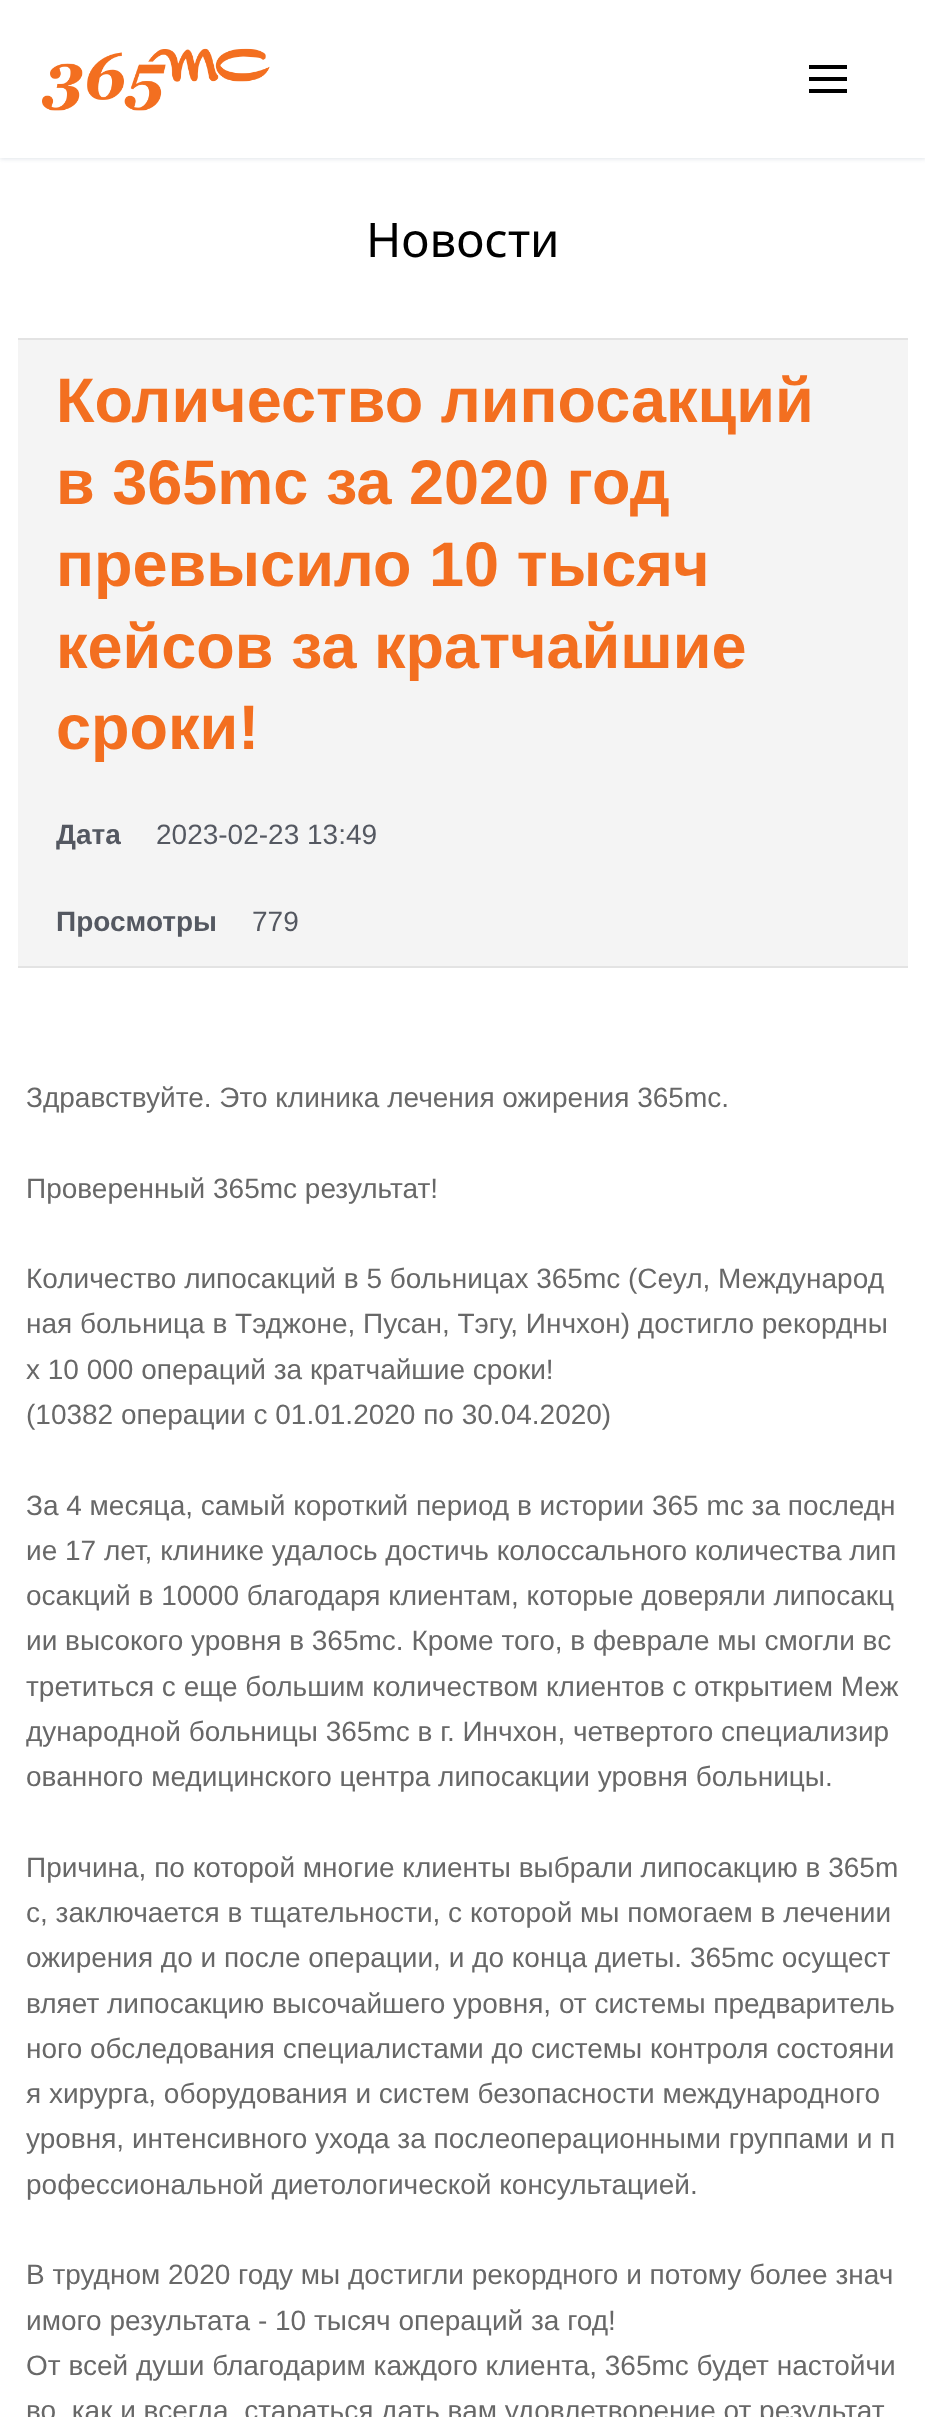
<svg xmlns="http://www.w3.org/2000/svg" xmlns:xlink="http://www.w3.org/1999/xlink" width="925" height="2417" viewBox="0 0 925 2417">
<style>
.cls-1{font:47.5px Noto Sans;fill:#000000}
.cls-2{font:bold 63px Liberation Sans;fill:#f36f20}
.cls-3{font:bold 28px Liberation Sans;fill:#545861}
.cls-4{font:28px Liberation Sans;fill:#545861}
.cls-5{font:28px Liberation Sans;fill:#686868}
</style>
<rect width="100%" height="100%" fill="#ffffff"/>
<rect fill="#e1e5ea" filter="blur(2px)" x="0" y="2" width="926" height="157"/>
<rect fill="#ffffff" x="0" y="0" width="925" height="158"/>
<image xlink:href="image0.png" x="42" y="48" width="228" height="63"/>
<rect fill="#000000" x="809" y="77" width="38" height="4"/>
<rect fill="#000000" x="809" y="65" width="38" height="4"/>
<rect fill="#000000" x="809" y="89" width="38" height="4"/>
<rect fill="#f4f4f4" x="18" y="340" width="890" height="626"/>
<rect fill="#e3e3e3" x="18" y="338" width="890" height="2"/>
<rect fill="#e3e3e3" x="18" y="966" width="890" height="2"/>
<text class="cls-1" x="366" y="257">Новости</text>
<text class="cls-2"><tspan x="56" y="422">Количество липосакций</tspan><tspan x="56" y="504">в 365mc за 2020 год</tspan><tspan x="56" y="586">превысило 10 тысяч</tspan><tspan x="56" y="668">кейсов за кратчайшие</tspan><tspan x="56" y="749">сроки!</tspan></text>
<text class="cls-3" x="56" y="844">Дата</text>
<text class="cls-4" x="156" y="844">2023-02-23 13:49</text>
<text class="cls-3" x="56" y="931">Просмотры</text>
<text class="cls-4" x="252" y="931">779</text>
<text class="cls-5" x="26" y="1107">Здравствуйте. Это клиника лечения ожирения 365mc.</text>
<text class="cls-5" x="26" y="1198">Проверенный 365mc результат!</text>
<text class="cls-5"><tspan x="26" y="1288">Количество липосакций в 5 больницах 365mc (Сеул, Международ</tspan><tspan x="26" y="1333">ная больница в Тэджоне, Пусан, Тэгу, Инчхон) достигло рекордны</tspan><tspan x="26" y="1379">х 10 000 операций за кратчайшие сроки!</tspan><tspan x="26" y="1424">(10382 операции с 01.01.2020 по 30.04.2020)</tspan></text>
<text class="cls-5"><tspan x="26" y="1515">За 4 месяца, самый короткий период в истории 365 mc за последн</tspan><tspan x="26" y="1560">ие 17 лет, клинике удалось достичь колоссального количества лип</tspan><tspan x="26" y="1605">осакций в 10000 благодаря клиентам, которые доверяли липосакц</tspan><tspan x="26" y="1650">ии высокого уровня в 365mc. Кроме того, в феврале мы смогли вс</tspan><tspan x="26" y="1696">третиться с еще большим количеством клиентов с открытием Меж</tspan><tspan x="26" y="1741">дународной больницы 365mc в г. Инчхон, четвертого специализир</tspan><tspan x="26" y="1786">ованного медицинского центра липосакции уровня больницы.</tspan></text>
<text class="cls-5"><tspan x="26" y="1877">Причина, по которой многие клиенты выбрали липосакцию в 365m</tspan><tspan x="26" y="1922">c, заключается в тщательности, с которой мы помогаем в лечении</tspan><tspan x="26" y="1967">ожирения до и после операции, и до конца диеты. 365mc осущест</tspan><tspan x="26" y="2013">вляет липосакцию высочайшего уровня, от системы предваритель</tspan><tspan x="26" y="2058">ного обследования специалистами до системы контроля состояни</tspan><tspan x="26" y="2103">я хирурга, оборудования и систем безопасности международного</tspan><tspan x="26" y="2148">уровня, интенсивного ухода за послеоперационными группами и п</tspan><tspan x="26" y="2194">рофессиональной диетологической консультацией.</tspan></text>
<text class="cls-5"><tspan x="26" y="2284">В трудном 2020 году мы достигли рекордного и потому более знач</tspan><tspan x="26" y="2330">имого результата - 10 тысяч операций за год!</tspan><tspan x="26" y="2375">От всей души благодарим каждого клиента, 365mc будет настойчи</tspan><tspan x="26" y="2420">во, как и всегда, стараться дать вам удовлетворение от результат</tspan></text>
</svg>
